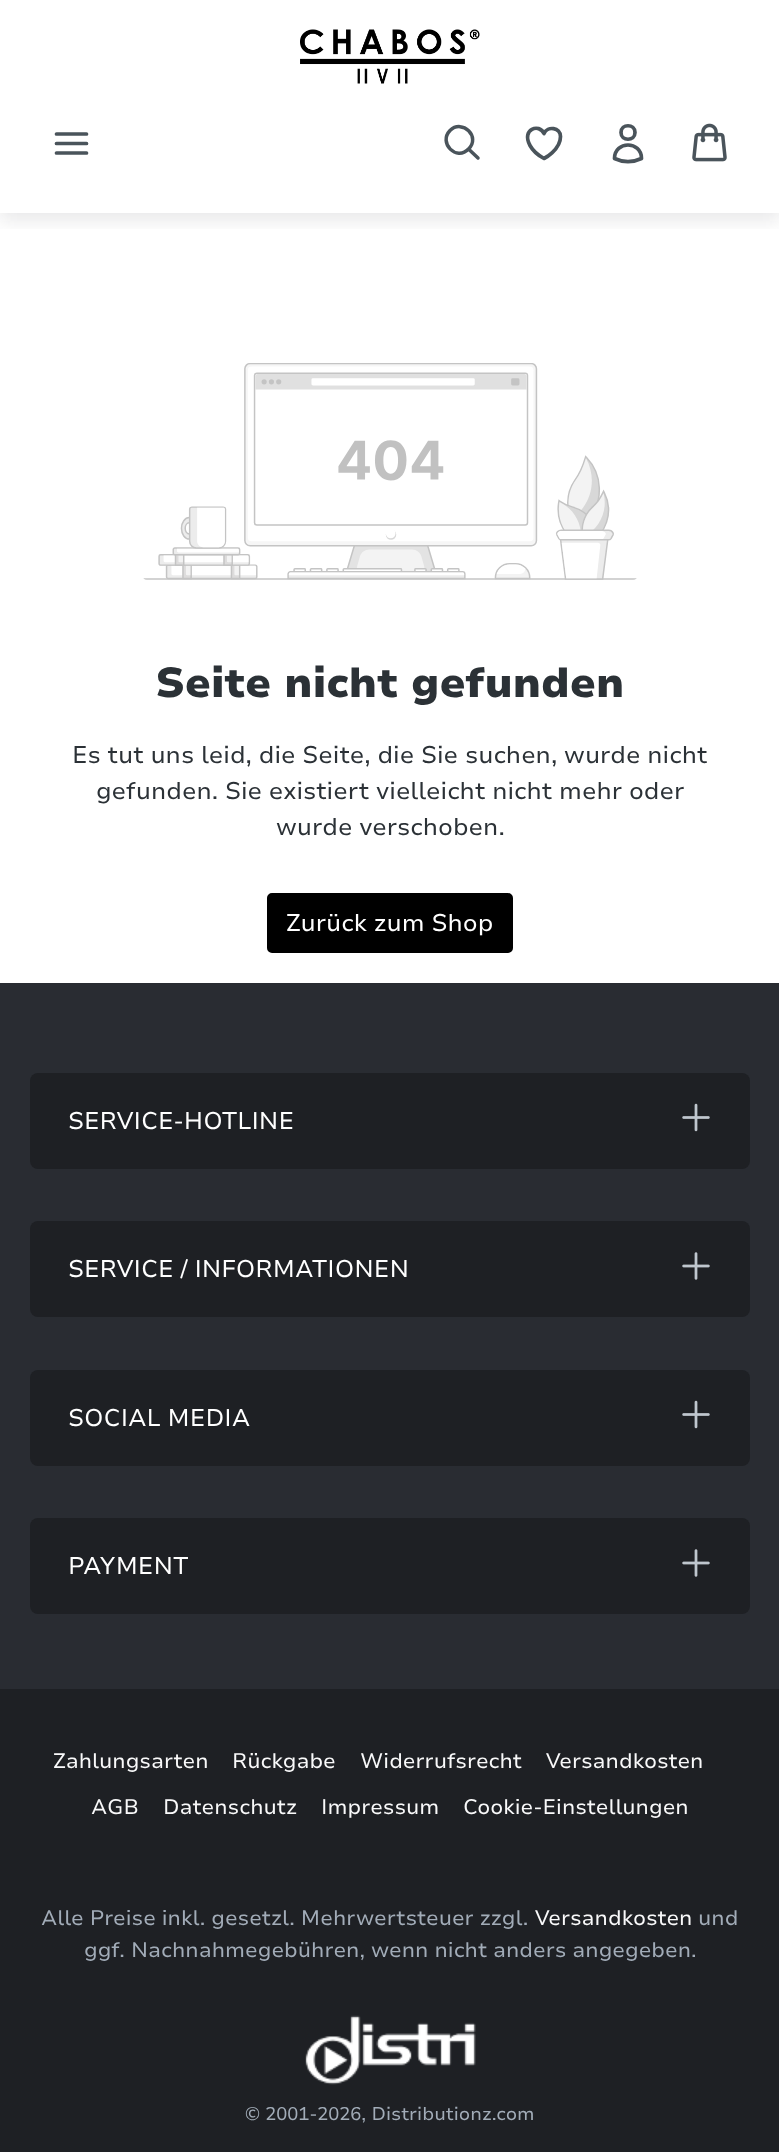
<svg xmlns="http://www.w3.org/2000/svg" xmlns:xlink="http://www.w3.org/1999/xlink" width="779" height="2152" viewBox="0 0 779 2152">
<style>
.cls-1{font:900 41.75px Nunito Sans;fill:#2b3136}
.cls-2{font:24px Nunito Sans;fill:#2b3136}
.cls-3{font:24px Nunito Sans;fill:#ffffff}
.cls-4{font:21px Nunito Sans;fill:#f9f9fa}
.cls-5{font:21px Nunito Sans;fill:#a2acb8}
.cls-6{font:18.4px Nunito Sans;fill:#a2acb8}
</style>
<defs>
<clipPath id="clip1"><rect x="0" y="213" width="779" height="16"/></clipPath>
</defs>
<rect width="100%" height="100%" fill="#ffffff"/>
<g clip-path="url(#clip1)">
<rect fill="#292a31" fill-opacity="0.1" filter="blur(9px)" x="0" y="6" width="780" height="215"/>
</g>
<image xlink:href="image0.png" x="300" y="29" width="180" height="55"/>
<path fill="none" stroke="#4a545b" stroke-width="3.7" stroke-linecap="round" stroke-linejoin="round" d="M56.5 134H86.5M56.5 143.5H86.5M56.5 153H86.5"/>
<path fill="none" stroke="#4a545b" stroke-width="3.5" stroke-linecap="round" stroke-linejoin="round" d="M478 158L468.5 149M468.5 149C481 137 462.5 118.5 450 130.5C438 143 456.5 161.5 468.5 149Z"/>
<path fill="none" stroke="#4a545b" stroke-width="3.7" stroke-linecap="round" stroke-linejoin="round" d="M560.5 136.5C560.5 127.5 547.5 125.5 544 133.5C539.5 123 521 129 530 145.5C533 151 538.5 155.5 544 158.5C544 158.5 560.5 150 560.5 136.5Z"/>
<path fill="none" stroke="#4a545b" stroke-width="3.7" stroke-linecap="round" stroke-linejoin="round" d="M635 132.5C635 141.5 621 141.5 621 132.5C621 123.5 635 123.5 635 132.5ZM614.5 158.5C614.5 140.5 641.5 140.5 641.5 158.5C633 162.5 623 162.5 614.5 158.5Z"/>
<image xlink:href="image1.png" x="692" y="123" width="35" height="39"/>
<image xlink:href="image2.png" x="143" y="363" width="494" height="217"/>
<rect fill="#000000" stroke="#000000" stroke-width="2" x="268" y="894" width="244" height="58" rx="4"/>
<rect fill="#292c32" x="0" y="983" width="779" height="706"/>
<rect fill="#1e2024" x="30" y="1073" width="720" height="96" rx="8"/>
<image xlink:href="image3.png" x="682" y="1103" width="28" height="29"/>
<rect fill="#1e2024" x="30" y="1221" width="720" height="96" rx="8"/>
<image xlink:href="image4.png" x="682" y="1252" width="28" height="28"/>
<rect fill="#1e2024" x="30" y="1370" width="720" height="96" rx="8"/>
<image xlink:href="image3.png" x="682" y="1400" width="28" height="29"/>
<rect fill="#1e2024" x="30" y="1518" width="720" height="96" rx="8"/>
<image xlink:href="image4.png" x="682" y="1549" width="28" height="28"/>
<rect fill="#1e2024" x="0" y="1689" width="779" height="463"/>
<image xlink:href="image5.png" x="305" y="2015" width="171" height="70"/>
<text class="cls-1" x="155" y="697">Seite nicht gefunden</text>
<text class="cls-2" x="72" y="763">Es tut uns leid, die Seite, die Sie suchen, wurde nicht</text>
<text class="cls-2" x="96" y="799">gefunden. Sie existiert vielleicht nicht mehr oder</text>
<text class="cls-2" x="276" y="835">wurde verschoben.</text>
<text class="cls-3" x="286" y="931">Zurück zum Shop</text>
<text class="cls-3" x="68" y="1129">SERVICE-HOTLINE</text>
<text class="cls-3" x="68" y="1277">SERVICE / INFORMATIONEN</text>
<text class="cls-3" x="68" y="1426">SOCIAL MEDIA</text>
<text class="cls-3" x="68" y="1574">PAYMENT</text>
<text class="cls-4" x="53" y="1768">Zahlungsarten</text>
<text class="cls-4" x="232" y="1768">Rückgabe</text>
<text class="cls-4" x="360" y="1768">Widerrufsrecht</text>
<text class="cls-4" x="546" y="1768">Versandkosten</text>
<text class="cls-4" x="91" y="1814">AGB</text>
<text class="cls-4" x="163" y="1814">Datenschutz</text>
<text class="cls-4" x="321" y="1814">Impressum</text>
<text class="cls-4" x="463" y="1814">Cookie-Einstellungen</text>
<text class="cls-5" x="41" y="1925">Alle Preise inkl. gesetzl. Mehrwertsteuer zzgl.</text>
<text class="cls-4" x="535" y="1925">Versandkosten</text>
<text class="cls-5" x="698" y="1925">und</text>
<text class="cls-5" x="84" y="1957">ggf. Nachnahmegebühren, wenn nicht anders angegeben.</text>
<text class="cls-6" x="245" y="2120">© 2001-2026, Distributionz.com</text>
</svg>
